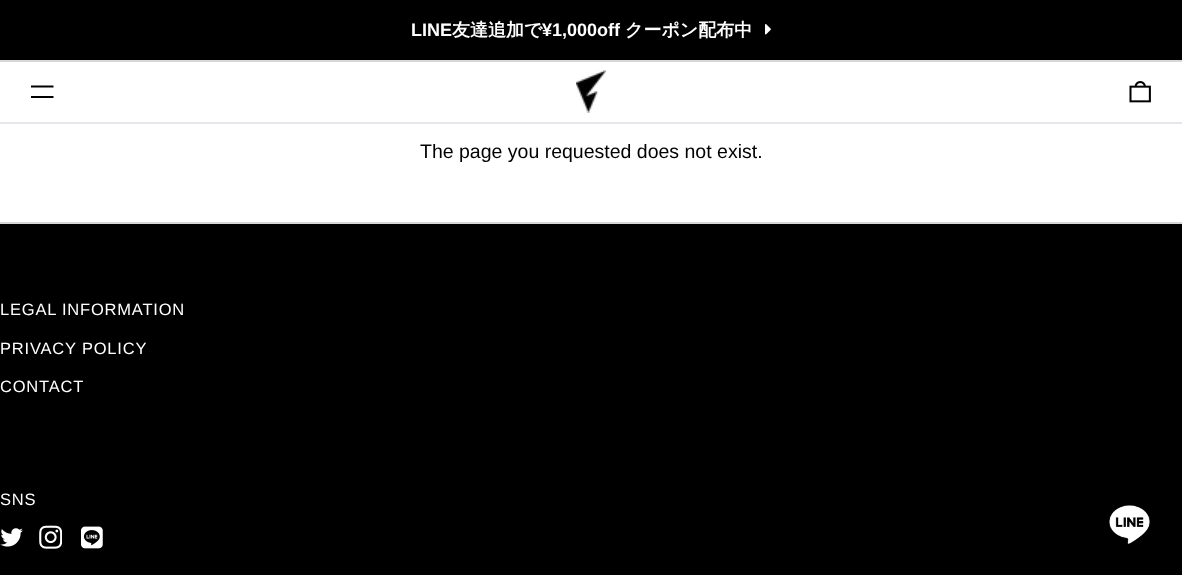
<svg xmlns="http://www.w3.org/2000/svg" xmlns:xlink="http://www.w3.org/1999/xlink" width="1182" height="575" viewBox="0 0 1182 575">
<style>
.cls-1{font:bold 18px Liberation Sans;fill:#ffffff}
.cls-2{font:bold 18px WenQuanYi Zen Hei;fill:#ffffff}
.cls-3{font:19.5px Liberation Sans;fill:#000000}
.cls-4{font:16.5px Liberation Sans;letter-spacing:0.8px;fill:#ffffff}
</style>
<rect width="100%" height="100%" fill="#ffffff"/>
<rect fill="#000000" x="0" y="0" width="1182" height="60"/>
<rect fill="#d7d7d7" x="0" y="60" width="1182" height="2"/>
<image xlink:href="image0.png" x="765" y="24" width="6" height="11"/>
<rect fill="#e5e7eb" x="0" y="122" width="1182" height="2"/>
<path fill="#000000" fill-rule="evenodd" d="M53.5 96V98H31V96ZM53.5 85.5V87.5H31V85.5Z"/>
<image xlink:href="image1.png" x="576" y="70" width="30" height="43"/>
<image xlink:href="image2.png" x="1129" y="81" width="22" height="22"/>
<rect fill="#000000" x="0" y="224" width="1182" height="351"/>
<rect fill="#d7d7d7" x="0" y="222" width="1182" height="2"/>
<image xlink:href="image3.png" x="0" y="528" width="23" height="19"/>
<image xlink:href="image4.png" x="39" y="525" width="23" height="24"/>
<image xlink:href="image5.png" x="81" y="526" width="22" height="23"/>
<image xlink:href="image6.png" x="1109" y="505" width="41" height="39"/>
<text class="cls-1" x="411" y="36">LINE</text>
<text class="cls-2" x="452" y="36">友達追加で</text>
<text class="cls-1" x="542" y="36">¥1,000off</text>
<text class="cls-2" x="625" y="36">クーポン配布中</text>
<text class="cls-3" x="420" y="158">The page you requested does not exist.</text>
<text class="cls-4" x="0" y="315">LEGAL INFORMATION</text>
<text class="cls-4" x="0" y="354">PRIVACY POLICY</text>
<text class="cls-4" x="0" y="392">CONTACT</text>
<text class="cls-4" x="0" y="505">SNS</text>
</svg>
